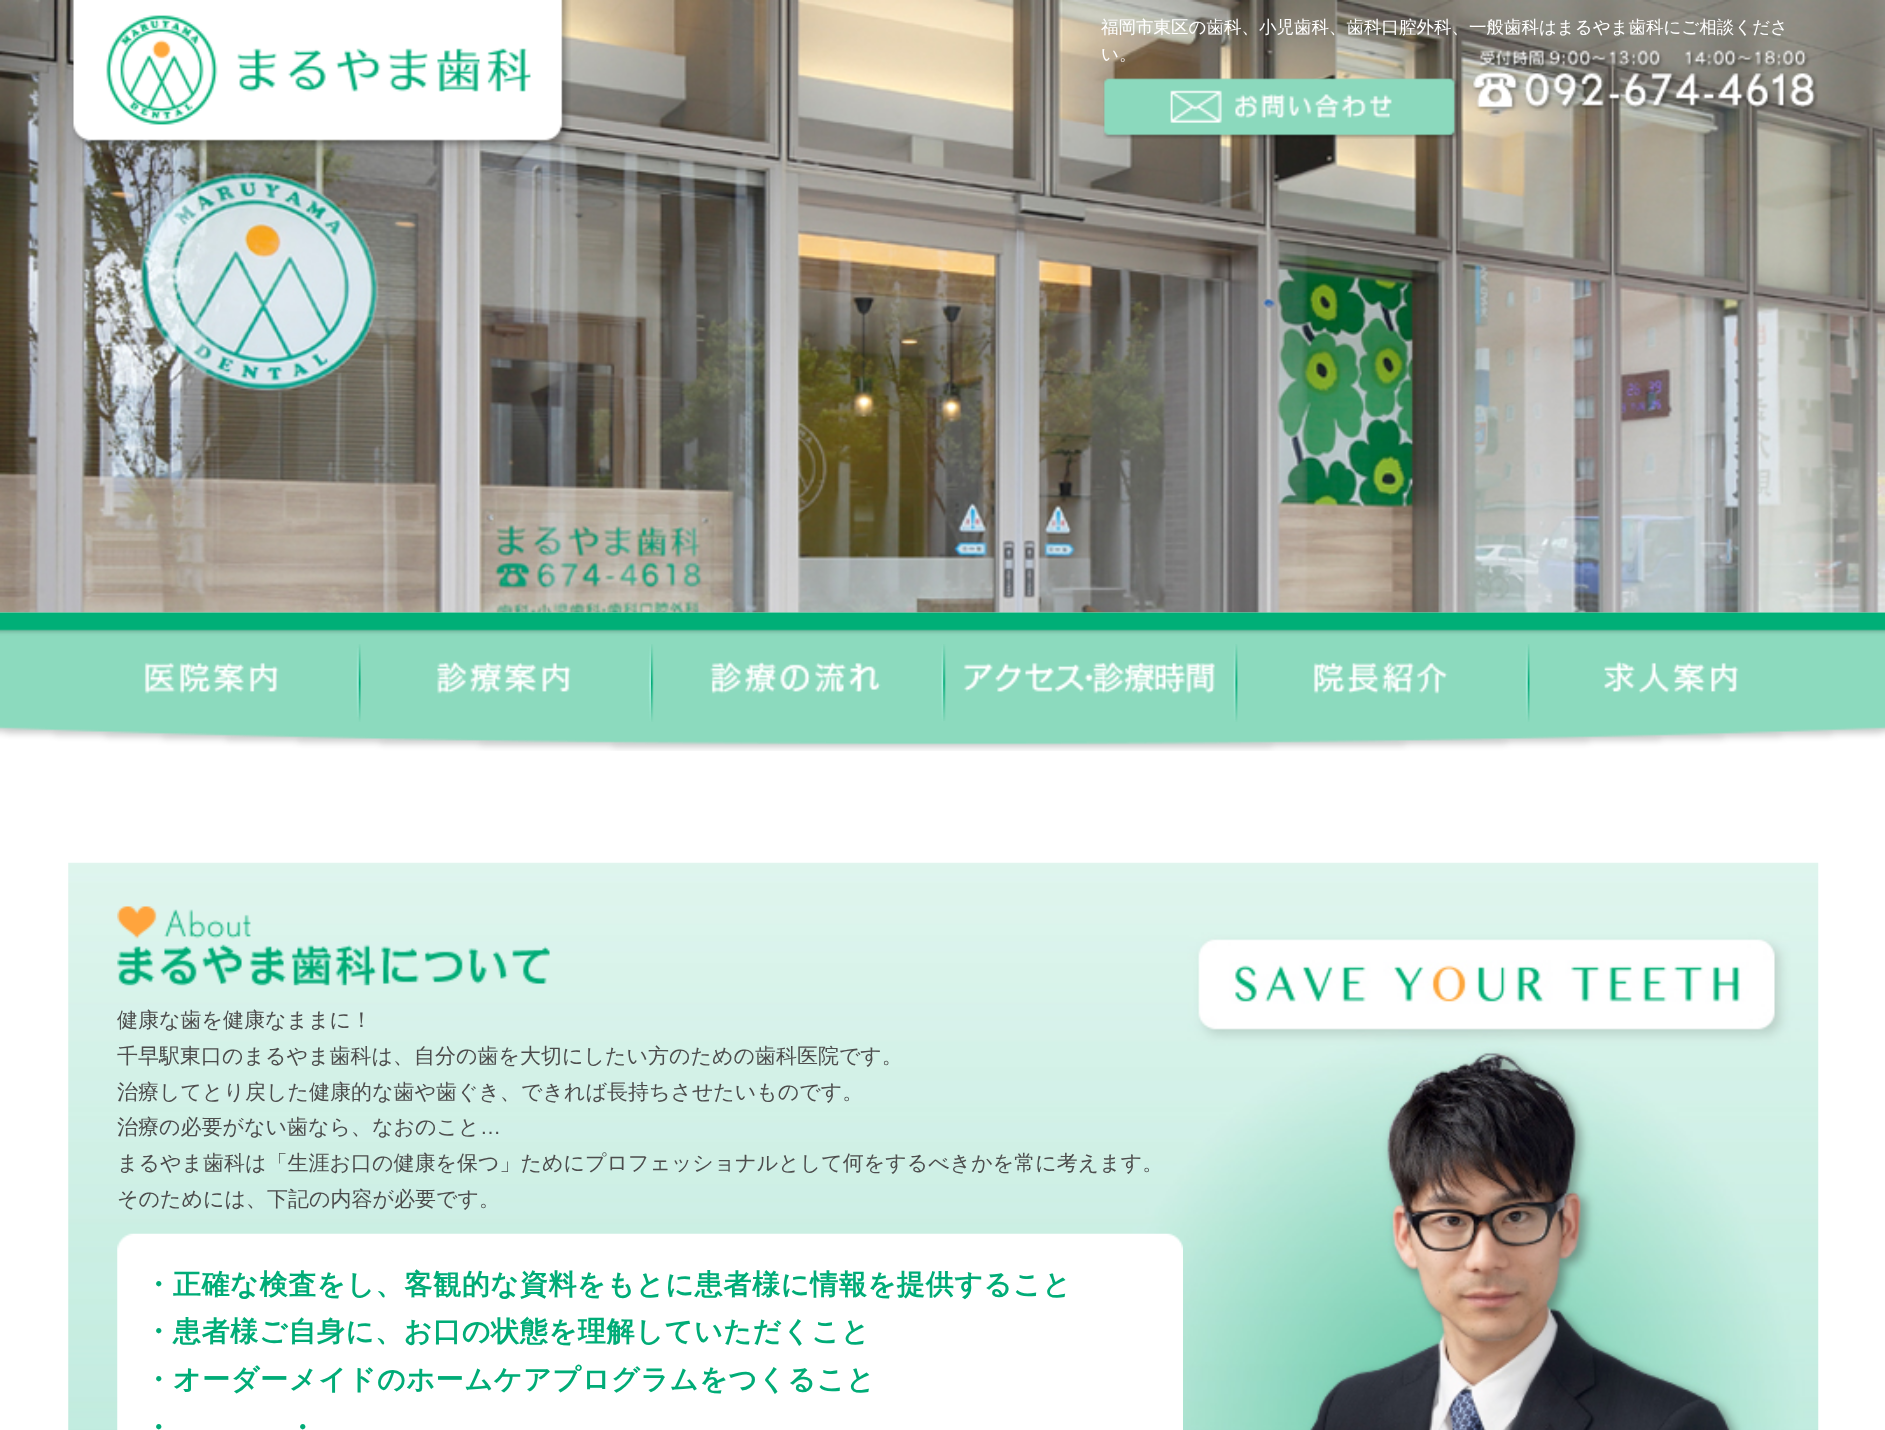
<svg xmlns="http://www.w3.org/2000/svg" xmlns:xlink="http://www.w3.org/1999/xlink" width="1885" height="1430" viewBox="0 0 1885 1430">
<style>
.cls-1{font:500 17.5px WenQuanYi Zen Hei;fill:#ffffff}
.cls-2{font:500 21px WenQuanYi Zen Hei;fill:#4d4d4d}
.cls-3{font:21px Liberation Sans;fill:#4d4d4d}
.cls-4{font:bold 28px WenQuanYi Zen Hei;letter-spacing:0.7px;fill:#00ac77}
</style>
<rect width="100%" height="100%" fill="#ffffff"/>
<image xlink:href="image0.png" x="0" y="0" width="1885" height="613"/>
<image xlink:href="image1.png" x="72" y="0" width="499" height="149"/>
<image xlink:href="image2.png" x="1472" y="50" width="346" height="61"/>
<image xlink:href="image3.png" x="1103" y="78" width="357" height="61"/>
<image xlink:href="image4.png" x="0" y="612" width="1885" height="139"/>
<image xlink:href="image5.png" x="144" y="648" width="215" height="69"/>
<image xlink:href="image6.png" x="358" y="644" width="293" height="78"/>
<image xlink:href="image7.png" x="651" y="644" width="293" height="78"/>
<image xlink:href="image8.png" x="943" y="644" width="293" height="77"/>
<image xlink:href="image9.png" x="1235" y="644" width="293" height="78"/>
<image xlink:href="image10.png" x="1527" y="644" width="212" height="78"/>
<image xlink:href="image11.png" x="68" y="862" width="1751" height="568"/>
<image xlink:href="image12.png" x="117" y="906" width="433" height="80"/>
<image xlink:href="image13.png" x="117" y="1233" width="1066" height="197"/>
<text class="cls-1"><tspan x="1101" y="33">福岡市東区の歯科、小児歯科、歯科口腔外科、一般歯科はまるやま歯科にご相談くださ</tspan><tspan x="1101" y="60">い。</tspan></text>
<text class="cls-2"><tspan x="117" y="1027">健康な歯を健康なままに！</tspan><tspan x="117" y="1063">千早駅東口のまるやま歯科は、自分の歯を大切にしたい方のための歯科医院です。</tspan><tspan x="117" y="1099">治療してとり戻した健康的な歯や歯ぐき、できれば長持ちさせたいものです。</tspan><tspan x="117" y="1134">治療の必要がない歯なら、なおのこと</tspan></text>
<text class="cls-3" x="480" y="1134">…</text>
<text class="cls-2"><tspan x="117" y="1170">まるやま歯科は「生涯お口の健康を保つ」ためにプロフェッショナルとして何をするべきかを常に考えます。</tspan><tspan x="117" y="1206">そのためには、下記の内容が必要です。</tspan></text>
<text class="cls-4"><tspan x="144" y="1294">・正確な検査をし、客観的な資料をもとに患者様に情報を提供すること</tspan><tspan x="144" y="1341">・患者様ご自身に、お口の状態を理解していただくこと</tspan><tspan x="144" y="1389">・オーダーメイドのホームケアプログラムをつくること</tspan><tspan x="144" y="1437">・</tspan></text>
<text class="cls-4" x="288" y="1437">・</text>
</svg>
